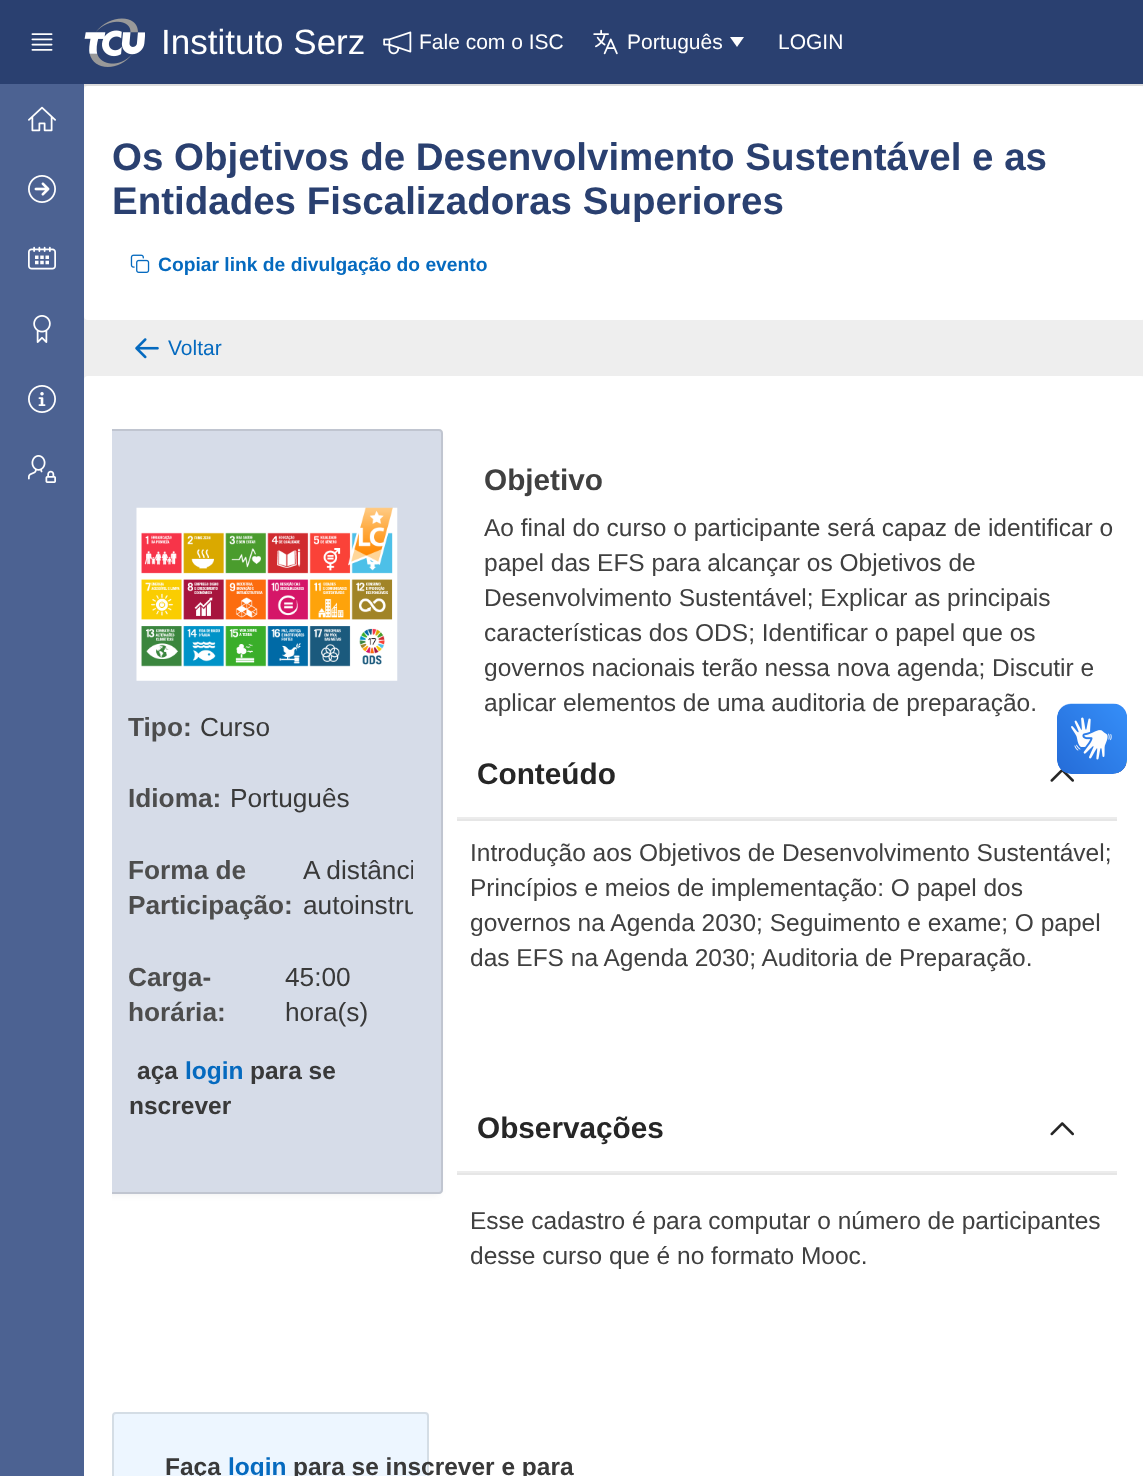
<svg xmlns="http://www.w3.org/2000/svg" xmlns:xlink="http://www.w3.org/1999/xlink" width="1143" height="1476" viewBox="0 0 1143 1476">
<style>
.cls-1{font:35px Liberation Sans;fill:#ffffff}
.cls-2{font:21px Liberation Sans;fill:#ffffff}
.cls-3{font:bold 38.5px Liberation Sans;fill:#2a4070}
.cls-4{font:bold 19.25px Liberation Sans;fill:#056abf}
.cls-5{font:21px Liberation Sans;fill:#056abf}
.cls-6{font:bold 26.25px Liberation Sans;fill:#4d4d4d}
.cls-7{font:26.25px Liberation Sans;fill:#393939}
.cls-8{font:bold 24.5px Liberation Sans;fill:#393939}
.cls-9{font:bold 24.5px Liberation Sans;fill:#056abf}
.cls-10{font:bold 29.75px Liberation Sans;fill:#404040}
.cls-11{font:24.5px Liberation Sans;fill:#404040}
.cls-12{font:bold 29.75px Liberation Sans;fill:#262626}
</style>
<defs>
<clipPath id="clip1"><rect x="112" y="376" width="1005" height="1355"/></clipPath>
<clipPath id="clip2"><rect x="112" y="376" width="1005" height="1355"/></clipPath>
<clipPath id="clip3"><rect x="294" y="838" width="119" height="98"/></clipPath>
</defs>
<rect width="100%" height="100%" fill="#eeeeee"/>
<rect fill="#2a4070" x="0" y="0" width="1143" height="84"/>
<image xlink:href="image0.png" x="31" y="33" width="22" height="18"/>
<image xlink:href="image1.png" x="84" y="18" width="61" height="49"/>
<image xlink:href="image2.png" x="383" y="31" width="29" height="24"/>
<image xlink:href="image3.png" x="593" y="29" width="25" height="26"/>
<path fill="#ffffff" d="M737 47L730 37H744Z"/>
<rect fill="#4c6292" x="0" y="84" width="84" height="1392"/>
<image xlink:href="image4.png" x="28" y="106" width="28" height="26"/>
<image xlink:href="image5.png" x="28" y="175" width="28" height="28"/>
<image xlink:href="image6.png" x="28" y="246" width="28" height="24"/>
<image xlink:href="image7.png" x="33" y="315" width="18" height="28"/>
<image xlink:href="image8.png" x="28" y="385" width="28" height="28"/>
<image xlink:href="image9.png" x="28" y="455" width="28" height="28"/>
<rect fill="#dcdcdc" x="84" y="84" width="1059" height="2"/>
<rect fill="#ffffff" x="84" y="86" width="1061" height="234" rx="4"/>
<image xlink:href="image10.png" x="130" y="254" width="20" height="19"/>
<image xlink:href="image11.png" x="135" y="338" width="24" height="21"/>
<rect fill="#ffffff" x="84" y="376" width="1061" height="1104" rx="4"/>
<g clip-path="url(#clip1)">
<rect fill="#000000" fill-opacity="0.07" filter="blur(3.5px)" x="102" y="436" width="337" height="758"/>
</g>
<path fill="#d6dce8" d="M112 429H439C441 429 443 431 443 433V1190C443 1192 441 1194 439 1194H112Z"/>
<g clip-path="url(#clip2)">
<rect fill="none" stroke="#000000" stroke-opacity="0.1" stroke-width="2" x="99" y="430" width="343" height="763" rx="3"/>
</g>
<image xlink:href="image12.png" x="136" y="507" width="262" height="174"/>
<rect fill="#e6e6e6" x="457" y="819" width="660" height="2"/>
<rect fill="#ececec" x="457" y="817" width="660" height="2"/>
<image xlink:href="image13.png" x="1050" y="769" width="24" height="13"/>
<rect fill="#e6e6e6" x="457" y="1173" width="660" height="2"/>
<rect fill="#ececec" x="457" y="1171" width="660" height="2"/>
<image xlink:href="image14.png" x="1050" y="1122" width="24" height="14"/>
<rect fill="#edf6ff" x="112" y="1412" width="317" height="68" rx="4"/>
<rect fill="none" stroke="#000000" stroke-opacity="0.1" stroke-width="2" x="113" y="1413" width="315" height="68" rx="3"/>
<image xlink:href="image15.png" x="1057" y="703" width="70" height="71"/>
<image xlink:href="image16.png" x="1057" y="704" width="70" height="70"/>
<text class="cls-1" x="161" y="54">Instituto Serz</text>
<text class="cls-2" x="419" y="49">Fale com o ISC</text>
<text class="cls-2" x="627" y="49">Português</text>
<text class="cls-2" x="778" y="49">LOGIN</text>
<text class="cls-3"><tspan x="112" y="170">Os Objetivos de Desenvolvimento Sustentável e as</tspan><tspan x="112" y="214">Entidades Fiscalizadoras Superiores</tspan></text>
<text class="cls-4" x="158" y="271">Copiar link de divulgação do evento</text>
<text class="cls-5" x="168" y="355">Voltar</text>
<text class="cls-6" x="128" y="736">Tipo:</text>
<text class="cls-7" x="200" y="736">Curso</text>
<text class="cls-6" x="128" y="807">Idioma:</text>
<text class="cls-7" x="230" y="807">Português</text>
<text class="cls-6"><tspan x="128" y="879">Forma de</tspan><tspan x="128" y="914">Participação:</tspan></text>
<g clip-path="url(#clip3)">
<text class="cls-7"><tspan x="303" y="879">A distânci</tspan><tspan x="303" y="914">autoinstru</tspan></text>
</g>
<text class="cls-6"><tspan x="128" y="986">Carga-</tspan><tspan x="128" y="1021">horária:</tspan></text>
<text class="cls-7"><tspan x="285" y="986">45:00</tspan><tspan x="285" y="1021">hora(s)</tspan></text>
<text class="cls-8" x="137" y="1079">aça</text>
<text class="cls-9" x="185" y="1079">login</text>
<text class="cls-8" x="250" y="1079">para se</text>
<text class="cls-8" x="129" y="1114">nscrever</text>
<text class="cls-10" x="484" y="490">Objetivo</text>
<text class="cls-11"><tspan x="484" y="536">Ao final do curso o participante será capaz de identificar o</tspan><tspan x="484" y="571">papel das EFS para alcançar os Objetivos de</tspan><tspan x="484" y="606">Desenvolvimento Sustentável; Explicar as principais</tspan><tspan x="484" y="641">características dos ODS; Identificar o papel que os</tspan><tspan x="484" y="676">governos nacionais terão nessa nova agenda; Discutir e</tspan><tspan x="484" y="711">aplicar elementos de uma auditoria de preparação.</tspan></text>
<text class="cls-12" x="477" y="784">Conteúdo</text>
<text class="cls-11"><tspan x="470" y="861">Introdução aos Objetivos de Desenvolvimento Sustentável;</tspan><tspan x="470" y="896">Princípios e meios de implementação: O papel dos</tspan><tspan x="470" y="931">governos na Agenda 2030; Seguimento e exame; O papel</tspan><tspan x="470" y="966">das EFS na Agenda 2030; Auditoria de Preparação.</tspan></text>
<text class="cls-12" x="477" y="1138">Observações</text>
<text class="cls-11"><tspan x="470" y="1229">Esse cadastro é para computar o número de participantes</tspan><tspan x="470" y="1264">desse curso que é no formato Mooc.</tspan></text>
<text class="cls-8" x="165" y="1475">Faça</text>
<text class="cls-9" x="228" y="1475">login</text>
<text class="cls-8" x="293" y="1475">para se inscrever e para</text>
</svg>
